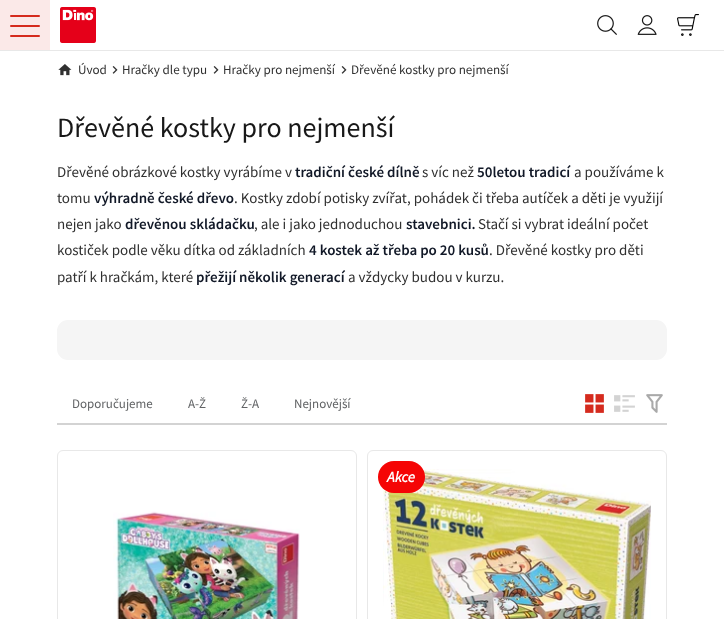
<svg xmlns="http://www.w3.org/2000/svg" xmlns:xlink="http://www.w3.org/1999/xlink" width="724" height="619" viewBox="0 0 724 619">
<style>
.cls-1{font:13.1px Source Sans Pro;fill:#303030}
.cls-2{font:28px Source Sans Pro;fill:#181818}
.cls-3{font:15px Source Sans Pro;fill:#303030}
.cls-4{font:600 15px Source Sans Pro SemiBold;fill:#111827}
.cls-5{font:13px Source Sans Pro;fill:#616365}
.cls-6{font:italic bold 15px Source Sans Pro;fill:#ffffff}
</style>
<rect width="100%" height="100%" fill="#ffffff"/>
<rect fill="#e8e8e8" x="0" y="50" width="724" height="1"/>
<rect fill="#fbe9e8" x="0" y="0" width="50" height="50"/>
<rect fill="#d52b1e" x="10" y="15" width="30" height="2" rx="1"/>
<rect fill="#d52b1e" x="10" y="25" width="30" height="2" rx="1"/>
<rect fill="#d52b1e" x="10" y="35" width="30" height="2" rx="1"/>
<image xlink:href="image0.png" x="60" y="7" width="36" height="36"/>
<image xlink:href="image1.png" x="597" y="15" width="20" height="20"/>
<image xlink:href="image2.png" x="637" y="15" width="20" height="20"/>
<image xlink:href="image3.png" x="677" y="14" width="22" height="22"/>
<image xlink:href="image4.png" x="58" y="64" width="14" height="12"/>
<image xlink:href="image5.png" x="112" y="66" width="6" height="8"/>
<image xlink:href="image5.png" x="213" y="66" width="6" height="8"/>
<image xlink:href="image5.png" x="341" y="66" width="6" height="8"/>
<rect fill="#f5f5f5" x="57" y="320" width="610" height="40" rx="11"/>
<rect fill="#d3d3d3" x="57" y="423" width="610" height="2"/>
<image xlink:href="image6.png" x="585" y="394" width="19" height="19"/>
<image xlink:href="image7.png" x="614" y="395" width="21" height="17"/>
<image xlink:href="image8.png" x="646" y="394" width="17" height="19"/>
<rect fill="none" stroke="#e8e8e8" x="57.5" y="450.5" width="299" height="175" rx="5.5"/>
<image xlink:href="image9.png" x="113" y="511" width="187" height="108"/>
<rect fill="none" stroke="#e8e8e8" x="367.5" y="450.5" width="299" height="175" rx="5.5"/>
<image xlink:href="image10.png" x="383" y="469" width="268" height="150"/>
<rect fill="#f50505" x="378" y="461" width="47" height="32" rx="16"/>
<text class="cls-1" x="78" y="74">Úvod</text>
<text class="cls-1" x="122" y="74">Hračky dle typu</text>
<text class="cls-1" x="223" y="74">Hračky pro nejmenší</text>
<text class="cls-1" x="351" y="74">Dřevěné kostky pro nejmenší</text>
<text class="cls-2" x="57" y="137">Dřevěné kostky pro nejmenší</text>
<text class="cls-3" x="57" y="177">Dřevěné obrázkové kostky vyrábíme v</text>
<text class="cls-4" x="295" y="177">tradiční české dílně</text>
<text class="cls-3" x="422" y="177">s víc než</text>
<text class="cls-4" x="477" y="177">50letou tradicí</text>
<text class="cls-3" x="574" y="177">a používáme k</text>
<text class="cls-3" x="57" y="203">tomu</text>
<text class="cls-4" x="94" y="203">výhradně české dřevo</text>
<text class="cls-3" x="234" y="203">. Kostky zdobí potisky zvířat, pohádek či třeba autíček a děti je využijí</text>
<text class="cls-3" x="57" y="229">nejen jako</text>
<text class="cls-4" x="125" y="229">dřevěnou skládačku</text>
<text class="cls-3" x="254" y="229">, ale i jako jednoduchou</text>
<text class="cls-4" x="406" y="229">stavebnici.</text>
<text class="cls-3" x="478" y="229">Stačí si vybrat ideální počet</text>
<text class="cls-3" x="57" y="255">kostiček podle věku dítka od základních</text>
<text class="cls-4" x="309" y="255">4 kostek až třeba po 20 kusů</text>
<text class="cls-3" x="489" y="255">. Dřevěné kostky pro děti</text>
<text class="cls-3" x="57" y="282">patří k hračkám, které</text>
<text class="cls-4" x="196" y="282">přežijí několik generací</text>
<text class="cls-3" x="348" y="282">a vždycky budou v kurzu.</text>
<text class="cls-5" x="72" y="408">Doporučujeme</text>
<text class="cls-5" x="188" y="408">A-Ž</text>
<text class="cls-5" x="241" y="408">Ž-A</text>
<text class="cls-5" x="294" y="408">Nejnovější</text>
<text class="cls-6" x="387" y="482">Akce</text>
</svg>
